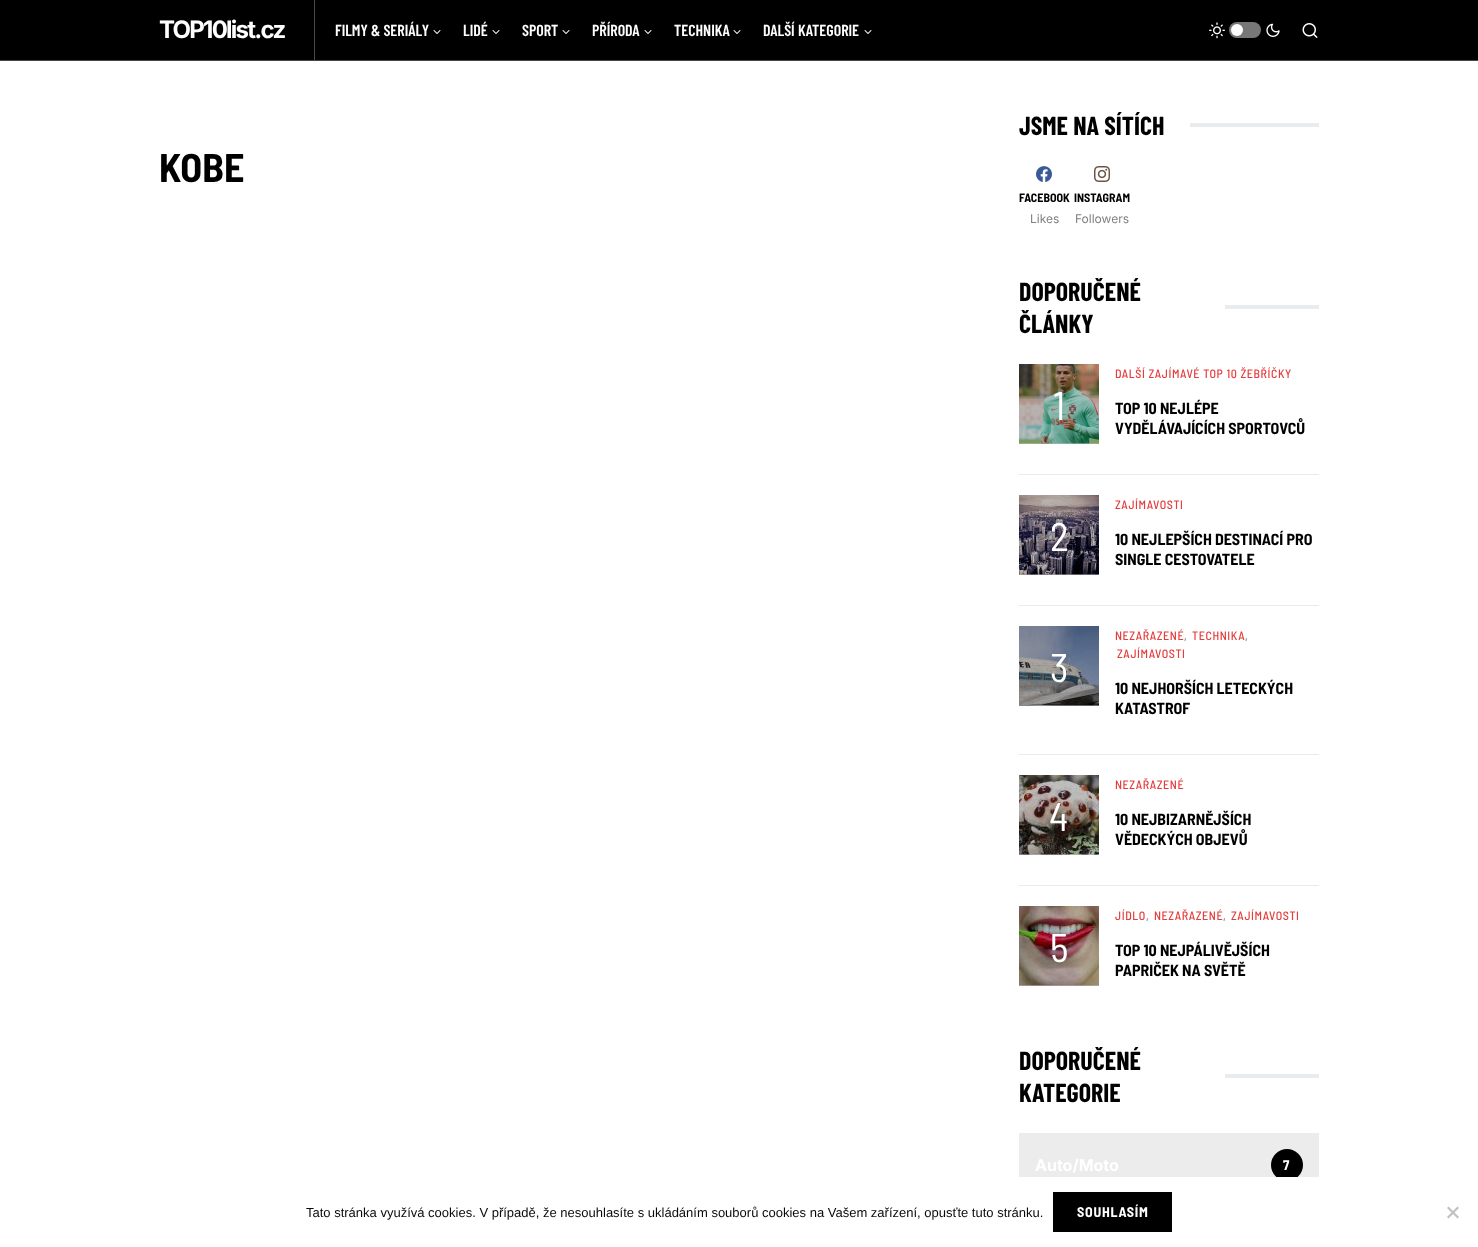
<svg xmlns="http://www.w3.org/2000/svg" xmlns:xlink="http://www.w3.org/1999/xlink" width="1478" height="1247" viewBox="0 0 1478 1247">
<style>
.cls-1{font:bold 24px Inter;letter-spacing:-1.75px;fill:#ffffff}
.cls-2{font:600 16px Barlow Condensed;fill:#ffffff}
.cls-3{font:bold 40px Barlow Semi Condensed;fill:#000000}
.cls-4{font:bold 26px Barlow Condensed;fill:#000000}
.cls-5{font:bold 12px Barlow Semi Condensed;fill:#000000}
.cls-6{font:12px Inter;fill:#818181}
.cls-7{font:40px Barlow Semi Condensed;fill:#ffffff}
.cls-8{font:500 12px Barlow Semi Condensed;letter-spacing:0.6px;fill:#e53c3c}
.cls-9{font:bold 16px Barlow Semi Condensed;fill:#000000}
.cls-10{font:500 12px Barlow Semi Condensed;letter-spacing:0.6px;fill:#818181}
.cls-11{font:bold 16px Inter;fill:#ffffff}
.cls-12{font:bold 14px Barlow Semi Condensed;letter-spacing:0.75px;fill:#ffffff}
.cls-13{font:13px Liberation Sans;fill:#0a0a0a}
</style>
<rect width="100%" height="100%" fill="#ffffff"/>
<rect fill="#bfbfbf" x="1019" y="985" width="80" height="1"/>
<rect fill="#bfbfbf" x="1019" y="854" width="80" height="1"/>
<rect fill="#bfbfbf" x="1019" y="705" width="80" height="1"/>
<rect fill="#bfbfbf" x="1019" y="574" width="80" height="1"/>
<rect fill="#bfbfbf" x="1019" y="443" width="80" height="1"/>
<rect fill="#000000" x="0" y="0" width="1478" height="60"/>
<rect fill="#494949" x="0" y="60" width="1478" height="1"/>
<rect fill="#494949" x="314" y="0" width="1" height="60"/>
<image xlink:href="image0.png" x="433" y="30" width="8" height="4"/>
<image xlink:href="image0.png" x="492" y="30" width="8" height="4"/>
<image xlink:href="image0.png" x="562" y="30" width="8" height="4"/>
<image xlink:href="image0.png" x="644" y="30" width="8" height="4"/>
<image xlink:href="image0.png" x="733" y="30" width="8" height="4"/>
<image xlink:href="image0.png" x="864" y="30" width="8" height="4"/>
<image xlink:href="image1.png" x="1209" y="22" width="16" height="17"/>
<rect fill="#777777" x="1229" y="22" width="32" height="16" rx="8"/>
<circle fill="#ffffff" cx="1237" cy="30" r="6"/>
<image xlink:href="image2.png" x="1266" y="23" width="14" height="14"/>
<image xlink:href="image3.png" x="1302" y="23" width="16" height="15"/>
<rect fill="#e9ecef" x="1190" y="123" width="129" height="4"/>
<image xlink:href="image4.png" x="1036" y="166" width="16" height="16"/>
<image xlink:href="image5.png" x="1094" y="166" width="16" height="16"/>
<rect fill="#e9ecef" x="1225" y="305" width="94" height="4"/>
<image xlink:href="image6.png" x="1019" y="364" width="80" height="80"/>
<rect fill="#e9ecef" x="1019" y="474" width="300" height="1"/>
<image xlink:href="image7.png" x="1019" y="495" width="80" height="80"/>
<rect fill="#e9ecef" x="1019" y="605" width="300" height="1"/>
<image xlink:href="image8.png" x="1019" y="626" width="80" height="80"/>
<rect fill="#e9ecef" x="1019" y="754" width="300" height="1"/>
<image xlink:href="image9.png" x="1019" y="775" width="80" height="80"/>
<rect fill="#e9ecef" x="1019" y="885" width="300" height="1"/>
<image xlink:href="image10.png" x="1019" y="906" width="80" height="80"/>
<rect fill="#e9ecef" x="1225" y="1074" width="94" height="4"/>
<rect fill="#ececec" x="1019" y="1133" width="300" height="44"/>
<circle fill="#000000" cx="1287" cy="1165" r="16"/>
<rect fill="#ffffff" x="1276" y="1177" width="22" height="4"/>
<rect fill="#000000" x="1053" y="1192" width="119" height="40"/>
<path fill="#c0c0c0" d="M1457.5 1206.5L1459 1208L1448.5 1218.5L1447 1217Z"/>
<path fill="#c0c0c0" d="M1447 1208L1448.5 1206.5L1459 1217L1457.5 1218.5Z"/>
<text class="cls-1" x="159" y="38">TOP10list.cz</text>
<text class="cls-2" x="335" y="36">FILMY &amp; SERIÁLY</text>
<text class="cls-2" x="463" y="36">LIDÉ</text>
<text class="cls-2" x="522" y="36">SPORT</text>
<text class="cls-2" x="592" y="36">PŘÍRODA</text>
<text class="cls-2" x="674" y="36">TECHNIKA</text>
<text class="cls-2" x="763" y="36">DALŠÍ KATEGORIE</text>
<text class="cls-3" x="159" y="182">KOBE</text>
<text class="cls-4" x="1019" y="135">JSME NA SÍTÍCH</text>
<text class="cls-5" x="1019" y="202">FACEBOOK</text>
<text class="cls-6" x="1030" y="223">Likes</text>
<text class="cls-5" x="1074" y="202">INSTAGRAM</text>
<text class="cls-6" x="1075" y="223">Followers</text>
<text class="cls-4"><tspan x="1019" y="301">DOPORUČENÉ</tspan><tspan x="1019" y="333">ČLÁNKY</tspan></text>
<text class="cls-7" x="1053" y="420">1</text>
<text class="cls-8" x="1115" y="378">DALŠÍ ZAJÍMAVÉ TOP 10 ŽEBŘÍČKY</text>
<text class="cls-9"><tspan x="1115" y="414">TOP 10 NEJLÉPE</tspan><tspan x="1115" y="434">VYDĚLÁVAJÍCÍCH SPORTOVCŮ</tspan></text>
<text class="cls-7" x="1050" y="551">2</text>
<text class="cls-8" x="1115" y="509">ZAJÍMAVOSTI</text>
<text class="cls-9"><tspan x="1115" y="545">10 NEJLEPŠÍCH DESTINACÍ PRO</tspan><tspan x="1115" y="565">SINGLE CESTOVATELE</tspan></text>
<text class="cls-7" x="1050" y="682">3</text>
<text class="cls-8" x="1115" y="640">NEZAŘAZENÉ</text>
<text class="cls-10" x="1184" y="640">,</text>
<text class="cls-8" x="1192" y="640">TECHNIKA</text>
<text class="cls-10" x="1245" y="640">,</text>
<text class="cls-8" x="1117" y="658">ZAJÍMAVOSTI</text>
<text class="cls-9"><tspan x="1115" y="694">10 NEJHORŠÍCH LETECKÝCH</tspan><tspan x="1115" y="714">KATASTROF</tspan></text>
<text class="cls-7" x="1049" y="831">4</text>
<text class="cls-8" x="1115" y="789">NEZAŘAZENÉ</text>
<text class="cls-9"><tspan x="1115" y="825">10 NEJBIZARNĚJŠÍCH</tspan><tspan x="1115" y="845">VĚDECKÝCH OBJEVŮ</tspan></text>
<text class="cls-7" x="1050" y="962">5</text>
<text class="cls-8" x="1115" y="920">JÍDLO</text>
<text class="cls-10" x="1146" y="920">,</text>
<text class="cls-8" x="1154" y="920">NEZAŘAZENÉ</text>
<text class="cls-10" x="1223" y="920">,</text>
<text class="cls-8" x="1231" y="920">ZAJÍMAVOSTI</text>
<text class="cls-9"><tspan x="1115" y="956">TOP 10 NEJPÁLIVĚJŠÍCH</tspan><tspan x="1115" y="976">PAPRIČEK NA SVĚTĚ</tspan></text>
<text class="cls-4"><tspan x="1019" y="1070">DOPORUČENÉ</tspan><tspan x="1019" y="1102">KATEGORIE</tspan></text>
<text class="cls-11" x="1035" y="1171">Auto/Moto</text>
<text class="cls-12" x="1283" y="1170">7</text>
<text class="cls-13" x="306" y="1217">Tato stránka využívá cookies. V případě, že nesouhlasíte s ukládáním souborů cookies na Vašem zařízení, opusťte tuto stránku.</text>
<text class="cls-12" x="1077" y="1217">SOUHLASÍM</text>
</svg>
